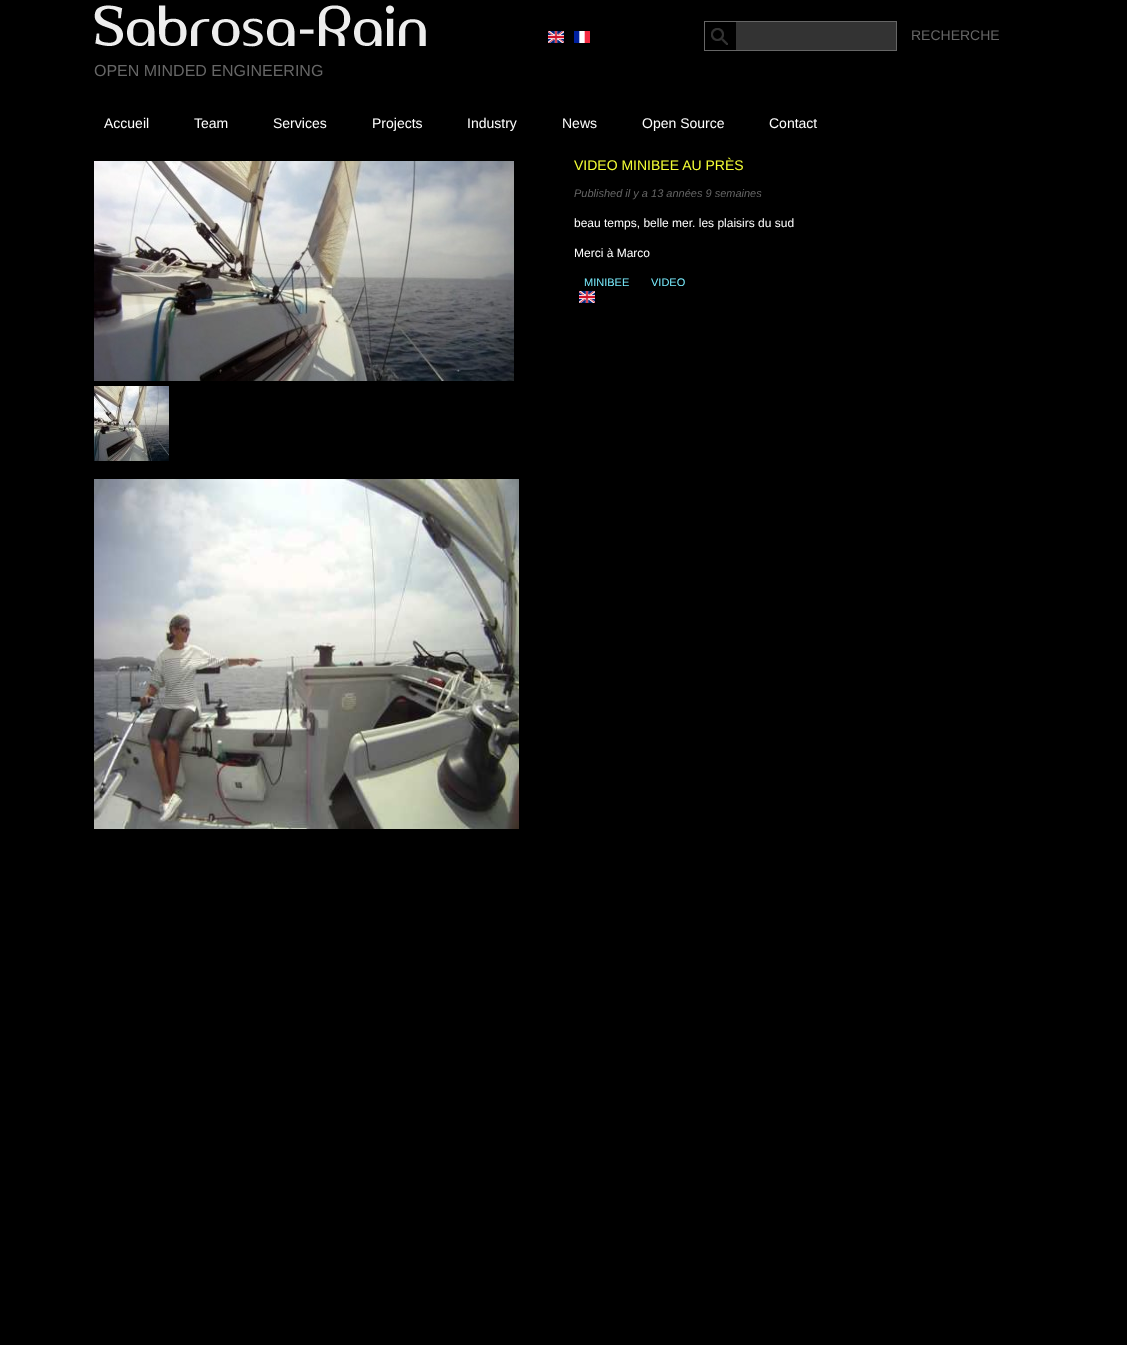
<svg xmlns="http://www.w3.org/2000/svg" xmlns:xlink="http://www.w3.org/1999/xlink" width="1127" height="1345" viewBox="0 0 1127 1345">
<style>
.cls-1{font:14px Liberation Sans;fill:#666666}
.cls-2{font:16px Liberation Sans;fill:#666666}
.cls-3{font:14px Liberation Sans;fill:#ffffff}
.cls-4{font:14px Liberation Sans;fill:#f5ff35}
.cls-5{font:italic 11px Liberation Sans;fill:#666666}
.cls-6{font:12px Liberation Sans;fill:#ffffff}
.cls-7{font:11px Liberation Sans;fill:#79edff}
</style>
<rect width="100%" height="100%" fill="#000000"/>
<image xlink:href="image0.png" x="548" y="31" width="16" height="12"/>
<image xlink:href="image1.png" x="574" y="31" width="16" height="12"/>
<rect fill="#333333" x="736" y="22" width="160" height="28"/>
<image xlink:href="image2.png" x="705" y="22" width="31" height="28"/>
<rect fill="none" stroke="#666666" x="704.5" y="21.5" width="192" height="29"/>
<image xlink:href="image3.png" x="94" y="5" width="332" height="42"/>
<image xlink:href="image4.png" x="94" y="161" width="420" height="220"/>
<image xlink:href="image5.png" x="94" y="386" width="75" height="75"/>
<image xlink:href="image6.png" x="94" y="479" width="425" height="350"/>
<image xlink:href="image0.png" x="579" y="291" width="16" height="12"/>
<text class="cls-1" x="911" y="40">RECHERCHE</text>
<text class="cls-2" x="94" y="76">OPEN MINDED ENGINEERING</text>
<text class="cls-3" x="104" y="128">Accueil</text>
<text class="cls-3" x="194" y="128">Team</text>
<text class="cls-3" x="273" y="128">Services</text>
<text class="cls-3" x="372" y="128">Projects</text>
<text class="cls-3" x="467" y="128">Industry</text>
<text class="cls-3" x="562" y="128">News</text>
<text class="cls-3" x="642" y="128">Open Source</text>
<text class="cls-3" x="769" y="128">Contact</text>
<text class="cls-4" x="574" y="170">VIDEO MINIBEE AU PRÈS</text>
<text class="cls-5" x="574" y="197">Published il y a 13 années 9 semaines</text>
<text class="cls-6" x="574" y="227">beau temps, belle mer. les plaisirs du sud</text>
<text class="cls-6" x="574" y="257">Merci à Marco</text>
<text class="cls-7" x="584" y="286">MINIBEE</text>
<text class="cls-7" x="651" y="286">VIDEO</text>
</svg>
